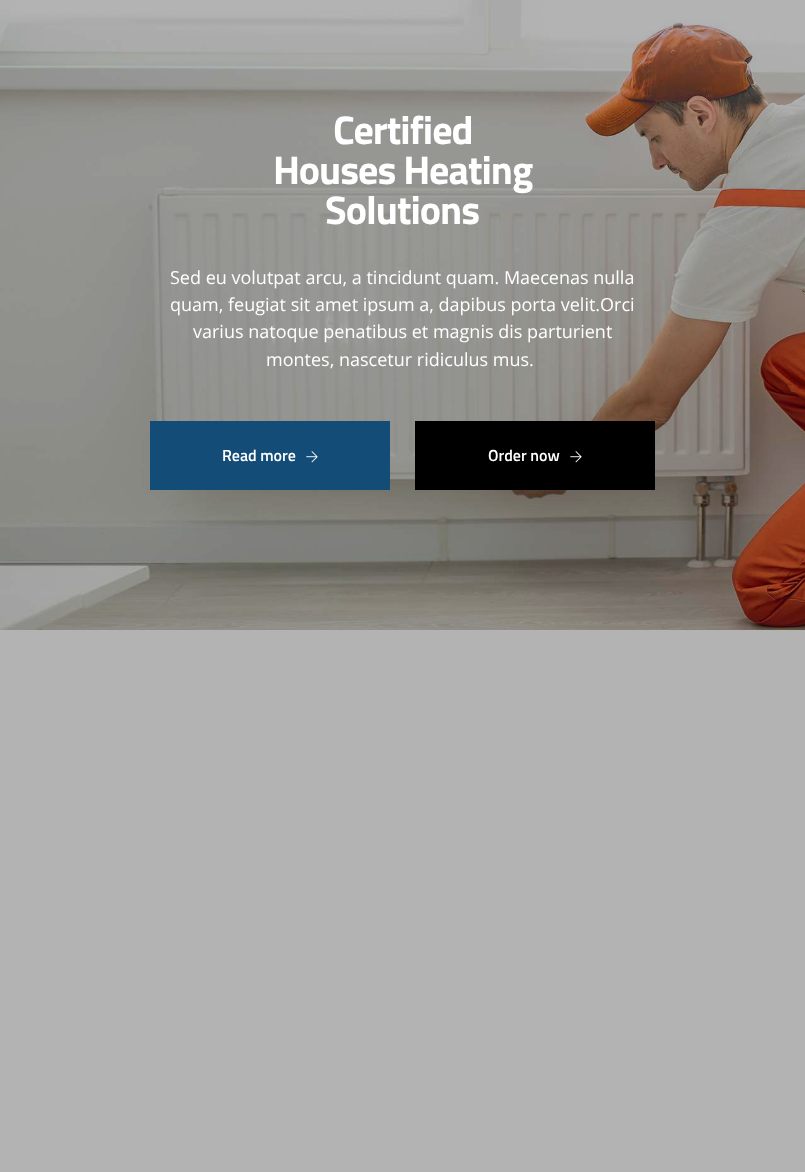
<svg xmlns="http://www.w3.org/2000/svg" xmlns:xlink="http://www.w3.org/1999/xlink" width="805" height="1172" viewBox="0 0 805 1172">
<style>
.cls-1{font:bold 40px Titillium Web;letter-spacing:-1px;fill:#ffffff}
.cls-2{font:18px Open Sans;fill:#ffffff}
.cls-3{font:600 16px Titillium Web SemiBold;fill:#ffffff}
</style>
<rect width="100%" height="100%" fill="#b3b3b3"/>
<image xlink:href="image0.png" x="0" y="0" width="805" height="630"/>
<rect fill="#144c78" x="150" y="421" width="240" height="69"/>
<image xlink:href="image1.png" x="306" y="451" width="12" height="12"/>
<rect fill="#000000" x="415" y="421" width="240" height="69"/>
<image xlink:href="image2.png" x="570" y="451" width="12" height="12"/>
<text class="cls-1" x="333" y="144">Certified</text>
<text class="cls-1" x="273" y="184">Houses Heating</text>
<text class="cls-1" x="325" y="224">Solutions</text>
<text class="cls-2"><tspan x="170" y="284">Sed eu volutpat arcu, a tincidunt quam. Maecenas nulla</tspan><tspan x="170" y="311">quam, feugiat sit amet ipsum a, dapibus porta velit.Orci</tspan></text>
<text class="cls-2" x="193" y="338">varius natoque penatibus et magnis dis parturient</text>
<text class="cls-2" x="266" y="366">montes, nascetur ridiculus mus.</text>
<text class="cls-3" x="222" y="461">Read more</text>
<text class="cls-3" x="488" y="461">Order now</text>
</svg>
